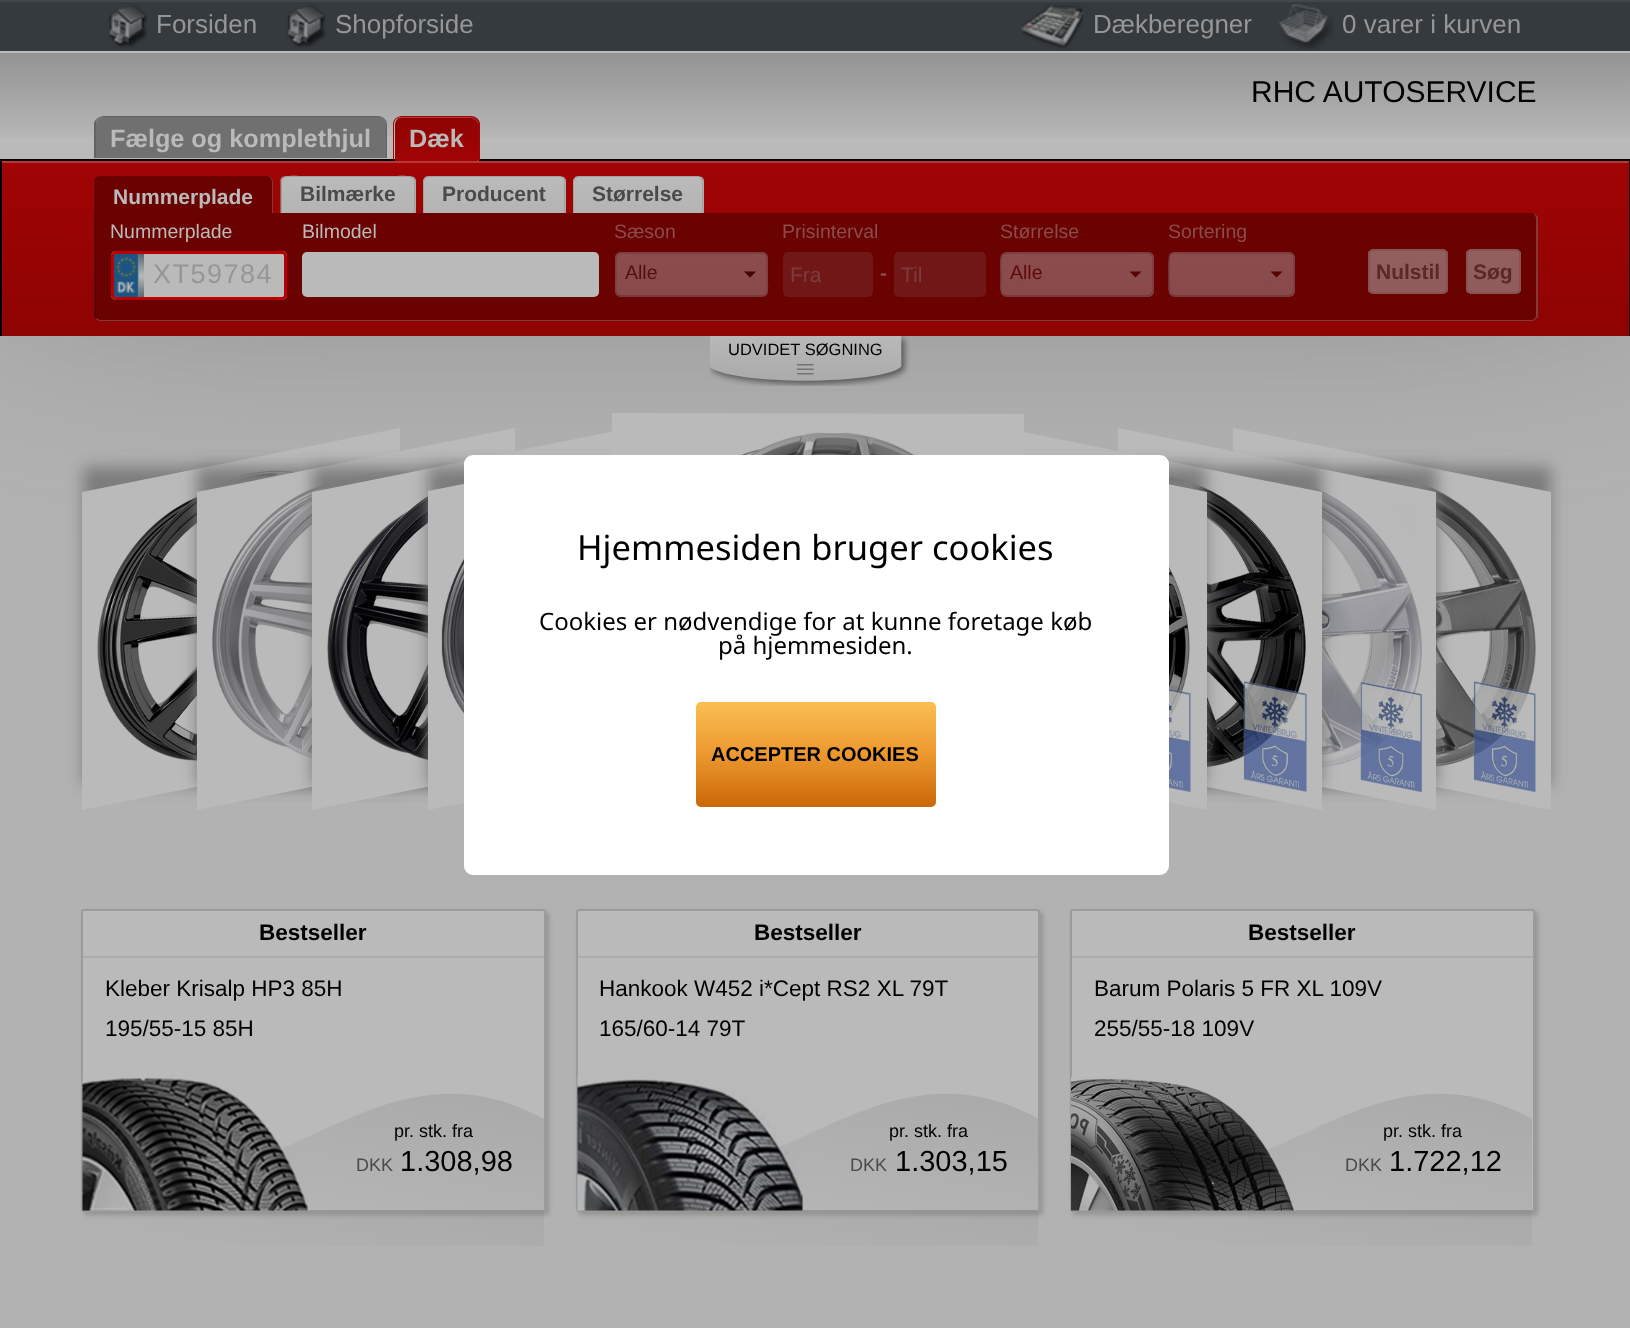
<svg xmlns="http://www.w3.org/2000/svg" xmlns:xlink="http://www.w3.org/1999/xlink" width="1630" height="1328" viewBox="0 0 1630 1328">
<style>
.cls-1{font:26px Liberation Sans;fill:#969696}
.cls-2{font:30px Liberation Sans;fill:#000000}
.cls-3{font:bold 25.25px Liberation Sans;fill:#bababa}
.cls-4{font:bold 21px Liberation Sans;fill:#bababa}
.cls-5{font:bold 21px Liberation Sans;fill:#4a4a4a}
.cls-6{font:19.5px Liberation Sans;fill:#bababa}
.cls-7{font:27px Liberation Sans;letter-spacing:1.5px;fill:#969696}
.cls-8{font:19.5px Liberation Sans;fill:#8a4c4c}
.cls-9{font:19.5px Liberation Sans;fill:#4e1010}
.cls-10{font:21px Liberation Sans;fill:#7b3d3d}
.cls-11{font:bold 21px Liberation Sans;fill:#8a4c4c}
.cls-12{font:19.5px Liberation Sans;fill:#5f0808}
.cls-13{font:bold 21px Liberation Sans;fill:#5b2727}
.cls-14{font:16.5px Liberation Sans;fill:#000000}
.cls-15{font:bold 22.5px Liberation Sans;fill:#000000}
.cls-16{font:22.5px Liberation Sans;fill:#000000}
.cls-17{font:18px Liberation Sans;fill:#000000}
.cls-18{font:18px Liberation Sans;fill:#4a4a4a}
.cls-19{font:29px Liberation Sans;fill:#000000}
.cls-20{font:34.5px Noto Sans;fill:#000000}
.cls-21{font:24px Noto Sans;fill:#000000}
.cls-22{font:bold 20px Liberation Sans;fill:#000000}
</style>
<defs>
<linearGradient id="g1" gradientUnits="userSpaceOnUse" x1="815" y1="52" x2="815" y2="147"><stop offset="0" stop-color="#000000" stop-opacity="0.21"/><stop offset="1" stop-color="#000000" stop-opacity="0"/></linearGradient>
<linearGradient id="g2" gradientUnits="userSpaceOnUse" x1="437" y1="117" x2="437" y2="161"><stop offset="0" stop-color="#8e0303"/><stop offset="1" stop-color="#a10404"/></linearGradient>
<linearGradient id="g3" gradientUnits="userSpaceOnUse" x1="815" y1="160" x2="815" y2="336"><stop offset="0" stop-color="#a10404"/><stop offset="1" stop-color="#8e0303"/></linearGradient>
<clipPath id="clip1"><path d="M287 176H410C413.5 176 416 178.5 416 182V215H281V182C281 178.5 283.5 176 287 176Z"/></clipPath>
<linearGradient id="g4" gradientUnits="userSpaceOnUse" x1="282" y1="177" x2="282" y2="213"><stop offset="0.05" stop-color="#bababa"/><stop offset="1" stop-color="#b4b4b4"/></linearGradient>
<clipPath id="clip2"><path d="M429 176H560C563.5 176 566 178.5 566 182V215H423V182C423 178.5 425.5 176 429 176Z"/></clipPath>
<linearGradient id="g5" gradientUnits="userSpaceOnUse" x1="425" y1="177" x2="425" y2="213"><stop offset="0.05" stop-color="#bababa"/><stop offset="1" stop-color="#b4b4b4"/></linearGradient>
<clipPath id="clip3"><path d="M579 176H698C701.5 176 704 178.5 704 182V215H573V182C573 178.5 575.5 176 579 176Z"/></clipPath>
<linearGradient id="g6" gradientUnits="userSpaceOnUse" x1="575" y1="177" x2="575" y2="213"><stop offset="0.05" stop-color="#bababa"/><stop offset="1" stop-color="#b4b4b4"/></linearGradient>
<clipPath id="clip4"><rect x="615" y="252" width="153" height="45" rx="6"/></clipPath>
<linearGradient id="g7" gradientUnits="userSpaceOnUse" x1="692" y1="212" x2="692" y2="254"><stop offset="0.05" stop-color="#8a4c4c"/><stop offset="1" stop-color="#874949"/></linearGradient>
<linearGradient id="g8" gradientUnits="userSpaceOnUse" x1="692" y1="254" x2="692" y2="296"><stop offset="0.05" stop-color="#8a4c4c"/><stop offset="1" stop-color="#874949"/></linearGradient>
<linearGradient id="g9" gradientUnits="userSpaceOnUse" x1="692" y1="296" x2="692" y2="338"><stop offset="0.05" stop-color="#8a4c4c"/><stop offset="1" stop-color="#874949"/></linearGradient>
<clipPath id="clip5"><rect x="1001" y="252" width="153" height="45" rx="6"/></clipPath>
<linearGradient id="g10" gradientUnits="userSpaceOnUse" x1="1077" y1="212" x2="1077" y2="254"><stop offset="0.05" stop-color="#8a4c4c"/><stop offset="1" stop-color="#874949"/></linearGradient>
<linearGradient id="g11" gradientUnits="userSpaceOnUse" x1="1077" y1="254" x2="1077" y2="296"><stop offset="0.05" stop-color="#8a4c4c"/><stop offset="1" stop-color="#874949"/></linearGradient>
<linearGradient id="g12" gradientUnits="userSpaceOnUse" x1="1077" y1="296" x2="1077" y2="338"><stop offset="0.05" stop-color="#8a4c4c"/><stop offset="1" stop-color="#874949"/></linearGradient>
<clipPath id="clip6"><rect x="1169" y="252" width="126" height="45" rx="6"/></clipPath>
<linearGradient id="g13" gradientUnits="userSpaceOnUse" x1="1232" y1="212" x2="1232" y2="254"><stop offset="0.05" stop-color="#8a4c4c"/><stop offset="1" stop-color="#874949"/></linearGradient>
<linearGradient id="g14" gradientUnits="userSpaceOnUse" x1="1232" y1="254" x2="1232" y2="296"><stop offset="0.05" stop-color="#8a4c4c"/><stop offset="1" stop-color="#874949"/></linearGradient>
<linearGradient id="g15" gradientUnits="userSpaceOnUse" x1="1232" y1="296" x2="1232" y2="338"><stop offset="0.05" stop-color="#8a4c4c"/><stop offset="1" stop-color="#874949"/></linearGradient>
<clipPath id="clip7"><rect x="1368" y="249" width="80" height="45" rx="5"/></clipPath>
<linearGradient id="g16" gradientUnits="userSpaceOnUse" x1="1370" y1="251" x2="1370" y2="293"><stop offset="0.05" stop-color="#925e5e"/><stop offset="1" stop-color="#8f5b5b"/></linearGradient>
<clipPath id="clip8"><rect x="1466" y="249" width="55" height="45" rx="5"/></clipPath>
<linearGradient id="g17" gradientUnits="userSpaceOnUse" x1="1467" y1="251" x2="1467" y2="293"><stop offset="0.05" stop-color="#925e5e"/><stop offset="1" stop-color="#8f5b5b"/></linearGradient>
<linearGradient id="g18" gradientUnits="userSpaceOnUse" x1="333" y1="1055" x2="289" y2="1276"><stop offset="0" stop-color="#000000" stop-opacity="0.09"/><stop offset="1" stop-color="#000000" stop-opacity="0"/></linearGradient>
<clipPath id="clip9"><rect x="578" y="1094" width="460" height="153"/></clipPath>
<linearGradient id="g19" gradientUnits="userSpaceOnUse" x1="828" y1="1055" x2="784" y2="1276"><stop offset="0" stop-color="#000000" stop-opacity="0.09"/><stop offset="1" stop-color="#000000" stop-opacity="0"/></linearGradient>
<linearGradient id="g20" gradientUnits="userSpaceOnUse" x1="1321" y1="1055" x2="1278" y2="1276"><stop offset="0" stop-color="#000000" stop-opacity="0.09"/><stop offset="1" stop-color="#000000" stop-opacity="0"/></linearGradient>
<linearGradient id="g21" gradientUnits="userSpaceOnUse" x1="816" y1="702" x2="816" y2="807"><stop offset="0" stop-color="#fbbe52"/><stop offset="0.5" stop-color="#ec982f"/><stop offset="1" stop-color="#cb6707"/></linearGradient>
</defs>
<rect width="100%" height="100%" fill="#b2b2b2"/>
<rect fill="#4a4a4a" filter="blur(150px)" x="0" y="0" width="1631" height="182"/>
<rect fill="#353a3e" x="0" y="2" width="1630" height="49"/>
<rect fill="#42474a" x="0" y="0" width="1630" height="2"/>
<image xlink:href="image0.png" x="108" y="4" width="39" height="44"/>
<image xlink:href="image1.png" x="286" y="4" width="40" height="44"/>
<image xlink:href="image2.png" x="1021" y="4" width="63" height="45"/>
<image xlink:href="image3.png" x="1279" y="4" width="55" height="46"/>
<rect fill="#bababa" x="0" y="51" width="1630" height="108"/>
<rect fill="url(#g1)" x="0" y="53" width="1630" height="84"/>
<path fill="#707070" d="M104 117H378C382.5 117 386 120.5 386 125V158H96V125C96 120.5 99.5 117 104 117Z"/>
<path fill="#707070" d="M104 118H378C382 118 386 122 386 126V125C386 121 382 117 378 117H104C100 117 96 121 96 125V126C96 122 99 118 104 118Z"/>
<path fill="#636363" fill-rule="evenodd" d="M104 116H378C383 116 387 120 387 124V158H94V124C94 120 99 116 104 116ZM104 117H378C382 117 386 120 386 124V158H96V124C96 120 99 117 104 117Z"/>
<rect fill="#000000" x="0" y="159" width="1630" height="2"/>
<path fill="url(#g2)" d="M403 117H471C475.5 117 479 120.5 479 125V161H395V125C395 120.5 398.5 117 403 117Z"/>
<path fill="#b73737" d="M402 118H471C475 118 478 122 478 126V161H479V125C479 121 475 117 471 117H403C400 117 398 119 396 121C398 119 400 118 402 118Z"/>
<path fill="#a10404" fill-rule="evenodd" d="M402 116H471C476 116 480 120 480 124V160H393V124C393 120 397 116 402 116ZM402 117H471C475 117 478 120 478 124V160H394V124C394 120 398 117 402 117Z"/>
<rect fill="url(#g3)" x="2" y="163" width="1627" height="173"/>
<rect fill="#b73737" x="2" y="161" width="1627" height="2"/>
<rect fill="#000000" x="1629" y="159" width="1" height="177"/>
<rect fill="#000000" x="0" y="159" width="2" height="177"/>
<path fill="#6a0202" d="M101 176H267C270.5 176 273 178.5 273 182V215H95V182C95 178.5 97.5 176 101 176Z"/>
<path fill="#bababa" fill-opacity="0.3" d="M273 214V182C273 178 270 176 267 176C269 176 272 178 272 182V214Z"/>
<path fill="#000000" fill-opacity="0.3" d="M100 176C98 176 96 178 96 182V214H94.5V179.5C95.5 177 97.5 176 100 176Z"/>
<g clip-path="url(#clip1)">
<rect fill="url(#g4)" x="281" y="177" width="135" height="36"/>
</g>
<path fill="#bababa" d="M286 178H410C412 178 414 181 414 183C414 172 392 177 389 177H307C304 177 282 172 282 183C282 181 284 178 286 178Z"/>
<path fill="#a1a1a1" d="M286 176L282 177L283 178L286 177H410L413 178L414 177L410 176Z"/>
<path fill="#a1a1a1" d="M414 177L415.5 179.5V214H415L414 213V182C414 180.5 413.5 179 412.5 178.5Z"/>
<path fill="#a1a1a1" d="M280.5 179.5L282 177L283.5 178.5C282.5 179 282 180.5 282 182V213L281 214H280.5Z"/>
<g clip-path="url(#clip2)">
<rect fill="url(#g5)" x="423" y="177" width="143" height="36"/>
</g>
<path fill="#a1a1a1" d="M429 176C428 176 426 176 425 177L426 178C427 177 428 177 429 177H560C561 177 562 177 563 178L564 177L560 176Z"/>
<path fill="#a1a1a1" d="M564 177L565.5 179.5V214H565L564 213V182C564 180.5 563.5 179 562.5 178.5Z"/>
<path fill="#a1a1a1" d="M423 182V214H423.5L424.5 213H424V182C424 180.5 425 179 426 178.5L425 177.5C424 178.5 423 180 423 182Z"/>
<g clip-path="url(#clip3)">
<rect fill="url(#g6)" x="573" y="177" width="131" height="36"/>
</g>
<path fill="#a1a1a1" d="M579 176C578 176 576 176 575 177L576 178C577 177 578 177 579 177H698C699 177 700 177 701 178L702 177L698 176Z"/>
<path fill="#a1a1a1" d="M702 177L703.5 179.5V214H703L702 213V182C702 180.5 701.5 179 700.5 178.5Z"/>
<path fill="#a1a1a1" d="M573 182V214H573.5L574.5 213H574V182C574 180.5 575 179 576 178.5L575 177.5C574 178.5 573 180 573 182Z"/>
<path fill="#6a0202" d="M95 213H1532C1535.5 213 1538 215.5 1538 219V315C1538 318.5 1535.5 321 1532 321H101C97.5 321 95 318.5 95 315Z"/>
<path fill="#bababa" fill-opacity="0.3" d="M1538 317L1536 319L1535 318C1536 317 1536 316 1536 315V219C1536 216 1534 213 1532 213C1534 213 1537 215 1538 217Z"/>
<path fill="#bababa" fill-opacity="0.3" d="M100 321H1532C1533 321 1535 320 1536 319L1535 318C1534 319 1533 320 1532 320H100C99 320 98 319 97 318L96 319C97 320 99 321 100 321Z"/>
<path fill="#000000" fill-opacity="0.3" d="M96 213V315C96 316 96 317 97 318L96 319L94 317V213Z"/>
<rect fill="#bababa" x="111" y="251" width="176" height="49" rx="5"/>
<image xlink:href="image4.png" x="114" y="254" width="30" height="43"/>
<rect fill="none" stroke="#ba0000" stroke-width="3" x="112.5" y="252.5" width="173" height="46" rx="3.5"/>
<rect fill="#bababa" x="302" y="252" width="297" height="45" rx="5"/>
<g clip-path="url(#clip4)">
<rect fill="url(#g7)" x="615" y="252" width="153" height="2"/>
<rect fill="url(#g8)" x="615" y="254" width="153" height="42"/>
<rect fill="url(#g9)" x="615" y="296" width="153" height="1"/>
</g>
<path fill="none" stroke="#743535" stroke-width="1.5" d="M765.5 294.5C764.5 295.5 763.5 296 762 296H621C619.5 296 618.5 295.5 617.5 294.5"/>
<path fill="none" stroke="#7b3d3d" stroke-width="1.5" d="M617.5 294.5C614 291.5 616 283.5 616 280C616 247.5 610.5 253 644.5 253H738.5C772.5 253 767 247.5 767 280C767 283.5 769 291.5 765.5 294.5"/>
<path fill="#400101" d="M744 271.5H756L750 277.5Z"/>
<rect fill="#721717" x="783" y="252" width="90" height="45" rx="5"/>
<rect fill="#721717" x="894" y="252" width="92" height="45" rx="5"/>
<g clip-path="url(#clip5)">
<rect fill="url(#g10)" x="1001" y="252" width="153" height="2"/>
<rect fill="url(#g11)" x="1001" y="254" width="153" height="42"/>
<rect fill="url(#g12)" x="1001" y="296" width="153" height="1"/>
</g>
<path fill="none" stroke="#743535" stroke-width="1.5" d="M1151 294.5C1150 295.5 1149 296 1147.5 296H1006.5C1005 296 1004 295.5 1003 294.5"/>
<path fill="none" stroke="#7b3d3d" stroke-width="1.5" d="M1003 294.5C999.5 291.5 1001 283.5 1001 280C1001 247.5 996 253 1030 253H1124C1158 253 1153 247.5 1153 280C1153 283.5 1154.5 291.5 1151 294.5"/>
<path fill="#590202" d="M1129.5 271.5H1141.5L1135.5 277.5Z"/>
<g clip-path="url(#clip6)">
<rect fill="url(#g13)" x="1169" y="252" width="126" height="2"/>
<rect fill="url(#g14)" x="1169" y="254" width="126" height="42"/>
<rect fill="url(#g15)" x="1169" y="296" width="126" height="1"/>
</g>
<path fill="none" stroke="#743535" stroke-width="1.5" d="M1292 294.5L1289 296H1174L1171 294.5"/>
<path fill="none" stroke="#7b3d3d" stroke-width="1.5" d="M1171 294.5C1168.5 292.5 1169 288.5 1169 285.5V274.5C1169 248.5 1166 253 1193.5 253H1288.5C1294.5 253 1294 259.5 1294 263.5V280C1294 283.5 1295.5 291.5 1292 294.5"/>
<path fill="#590202" d="M1270.5 271.5H1282.5L1276.5 277.5Z"/>
<g clip-path="url(#clip7)">
<rect fill="url(#g16)" x="1368" y="251" width="80" height="42"/>
</g>
<path fill="#925e5e" d="M1372 252H1443C1445 252 1446 253 1446 255C1446 248 1435 251 1431 251H1385C1381 251 1370 248 1370 255C1370 253 1371 252 1372 252Z"/>
<rect fill="none" stroke="#865252" stroke-width="2" x="1369" y="250" width="78" height="43" rx="4"/>
<g clip-path="url(#clip8)">
<rect fill="url(#g17)" x="1466" y="251" width="55" height="42"/>
</g>
<rect fill="none" stroke="#865252" stroke-width="2" x="1467" y="250" width="53" height="43" rx="4"/>
<image xlink:href="image5.png" x="710" y="336" width="200" height="50"/>
<rect fill="#7c7c7c" filter="blur(7.5px)" x="83" y="467" width="318" height="318"/>
<path fill="#bababa" d="M82 492L400 428V746L82 810Z"/>
<image xlink:href="image6.png" x="97" y="470" width="210" height="296"/>
<rect fill="#7c7c7c" filter="blur(7.5px)" x="197" y="467" width="318" height="318"/>
<path fill="#bababa" d="M197 492L515 428V746L197 810Z"/>
<image xlink:href="image8.png" x="211" y="471" width="206" height="292"/>
<rect fill="#7c7c7c" filter="blur(7.5px)" x="312" y="467" width="318" height="318"/>
<path fill="#bababa" d="M312 492L630 428V746L312 810Z"/>
<image xlink:href="image9.png" x="327" y="477" width="137" height="287"/>
<rect fill="#7c7c7c" filter="blur(7.5px)" x="428" y="467" width="318" height="318"/>
<path fill="#bababa" d="M428 491L747 428V747L428 810Z"/>
<rect fill="#7c7c7c" filter="blur(7.5px)" x="1233" y="467" width="318" height="318"/>
<path fill="#bababa" d="M1233 428L1551 492V810L1233 746Z"/>
<image xlink:href="image14.png" x="1346" y="474" width="190" height="319"/>
<rect fill="#7c7c7c" filter="blur(7.5px)" x="1119" y="467" width="318" height="318"/>
<path fill="#bababa" d="M1118 428L1436 492V810L1118 746Z"/>
<image xlink:href="image13.png" x="1242" y="476" width="180" height="317"/>
<rect fill="#7c7c7c" filter="blur(7.5px)" x="1004" y="467" width="318" height="318"/>
<path fill="#bababa" d="M1004 428L1322 492V810L1004 746Z"/>
<image xlink:href="image12.png" x="1169" y="476" width="138" height="316"/>
<rect fill="#7c7c7c" filter="blur(7.5px)" x="888" y="467" width="318" height="318"/>
<path fill="#bababa" d="M889 428L1207 492V810L889 746Z"/>
<path fill="#bababa" d="M612 413L1024 414V826L612 825Z"/>
<image xlink:href="image7.png" x="633" y="432" width="372" height="23"/>
<image xlink:href="image10.png" x="441" y="499" width="23" height="266"/>
<image xlink:href="image11.png" x="1169" y="499" width="22" height="294"/>
<rect fill="#959595" filter="blur(2px)" x="84" y="912" width="465" height="303" rx="3"/>
<rect fill="#bababa" stroke="#9b9b9b" stroke-width="2" x="82" y="910" width="463" height="301" rx="2"/>
<rect fill="#000000" fill-opacity="0.07" x="83" y="956" width="462" height="2"/>
<image xlink:href="image15.png" x="82" y="1078" width="226" height="133"/>
<path fill="url(#g18)" d="M83 1246V1124C249 1271 356 1016 544 1119V1246Z"/>
<rect fill="#959595" filter="blur(2px)" x="579" y="912" width="464" height="303" rx="3"/>
<rect fill="#bababa" stroke="#9b9b9b" stroke-width="2" x="577" y="910" width="462" height="301" rx="2"/>
<rect fill="#acacac" x="578" y="956" width="460" height="2"/>
<image xlink:href="image16.png" x="577" y="1077" width="226" height="134"/>
<g clip-path="url(#clip9)">
<path fill="url(#g19)" d="M578 1246V1124C744 1271 851 1016 1039 1119V1246Z"/>
</g>
<rect fill="#959595" filter="blur(2px)" x="1073" y="912" width="465" height="303" rx="3"/>
<rect fill="#bababa" stroke="#9b9b9b" stroke-width="2" x="1071" y="910" width="463" height="301" rx="2"/>
<rect fill="#000000" fill-opacity="0.07" x="1071" y="956" width="462" height="2"/>
<image xlink:href="image17.png" x="1071" y="1077" width="225" height="134"/>
<path fill="url(#g20)" d="M1072 1246L1071 1124C1238 1271 1345 1016 1532 1119V1246Z"/>
<rect fill="#ffffff" x="464" y="455" width="705" height="420" rx="9"/>
<rect fill="url(#g21)" x="696" y="702" width="240" height="105" rx="5"/>
<text class="cls-1" x="156" y="33">Forsiden</text>
<text class="cls-1" x="335" y="33">Shopforside</text>
<text class="cls-1" x="1093" y="33">Dækberegner</text>
<text class="cls-1" x="1342" y="33">0 varer i kurven</text>
<text class="cls-2" x="1251" y="102">RHC AUTOSERVICE</text>
<text class="cls-3" x="110" y="147">Fælge og komplethjul</text>
<text class="cls-3" x="409" y="147">Dæk</text>
<text class="cls-4" x="113" y="204">Nummerplade</text>
<text class="cls-5" x="300" y="201">Bilmærke</text>
<text class="cls-5" x="442" y="201">Producent</text>
<text class="cls-5" x="592" y="201">Størrelse</text>
<text class="cls-6" x="110" y="238">Nummerplade</text>
<text class="cls-7" x="153" y="283">XT59784</text>
<text class="cls-6" x="302" y="238">Bilmodel</text>
<text class="cls-8" x="614" y="238">Sæson</text>
<text class="cls-9" x="625" y="279">Alle</text>
<text class="cls-8" x="782" y="238">Prisinterval</text>
<text class="cls-10" x="790" y="282">Fra</text>
<text class="cls-11" x="880" y="280">-</text>
<text class="cls-10" x="901" y="282">Til</text>
<text class="cls-8" x="1000" y="238">Størrelse</text>
<text class="cls-12" x="1010" y="279">Alle</text>
<text class="cls-8" x="1168" y="238">Sortering</text>
<text class="cls-13" x="1376" y="279">Nulstil</text>
<text class="cls-13" x="1473" y="279">Søg</text>
<text class="cls-14" x="728" y="355">UDVIDET SØGNING</text>
<text class="cls-15" x="259" y="940">Bestseller</text>
<text class="cls-16"><tspan x="105" y="996">Kleber Krisalp HP3 85H</tspan><tspan x="105" y="1036">195/55-15 85H</tspan></text>
<text class="cls-17" x="394" y="1137">pr. stk. fra</text>
<text class="cls-18" x="356" y="1171">DKK</text>
<text class="cls-19" x="400" y="1171">1.308,98</text>
<text class="cls-15" x="754" y="940">Bestseller</text>
<text class="cls-16"><tspan x="599" y="996">Hankook W452 i*Cept RS2 XL 79T</tspan><tspan x="599" y="1036">165/60-14 79T</tspan></text>
<text class="cls-17" x="889" y="1137">pr. stk. fra</text>
<text class="cls-18" x="850" y="1171">DKK</text>
<text class="cls-19" x="895" y="1171">1.303,15</text>
<text class="cls-15" x="1248" y="940">Bestseller</text>
<text class="cls-16"><tspan x="1094" y="996">Barum Polaris 5 FR XL 109V</tspan><tspan x="1094" y="1036">255/55-18 109V</tspan></text>
<text class="cls-17" x="1383" y="1137">pr. stk. fra</text>
<text class="cls-18" x="1345" y="1171">DKK</text>
<text class="cls-19" x="1389" y="1171">1.722,12</text>
<text class="cls-20" x="577" y="560">Hjemmesiden bruger cookies</text>
<text class="cls-21" x="539" y="630">Cookies er nødvendige for at kunne foretage køb</text>
<text class="cls-21" x="718" y="654">på hjemmesiden.</text>
<text class="cls-22" x="711" y="761">ACCEPTER COOKIES</text>
</svg>
